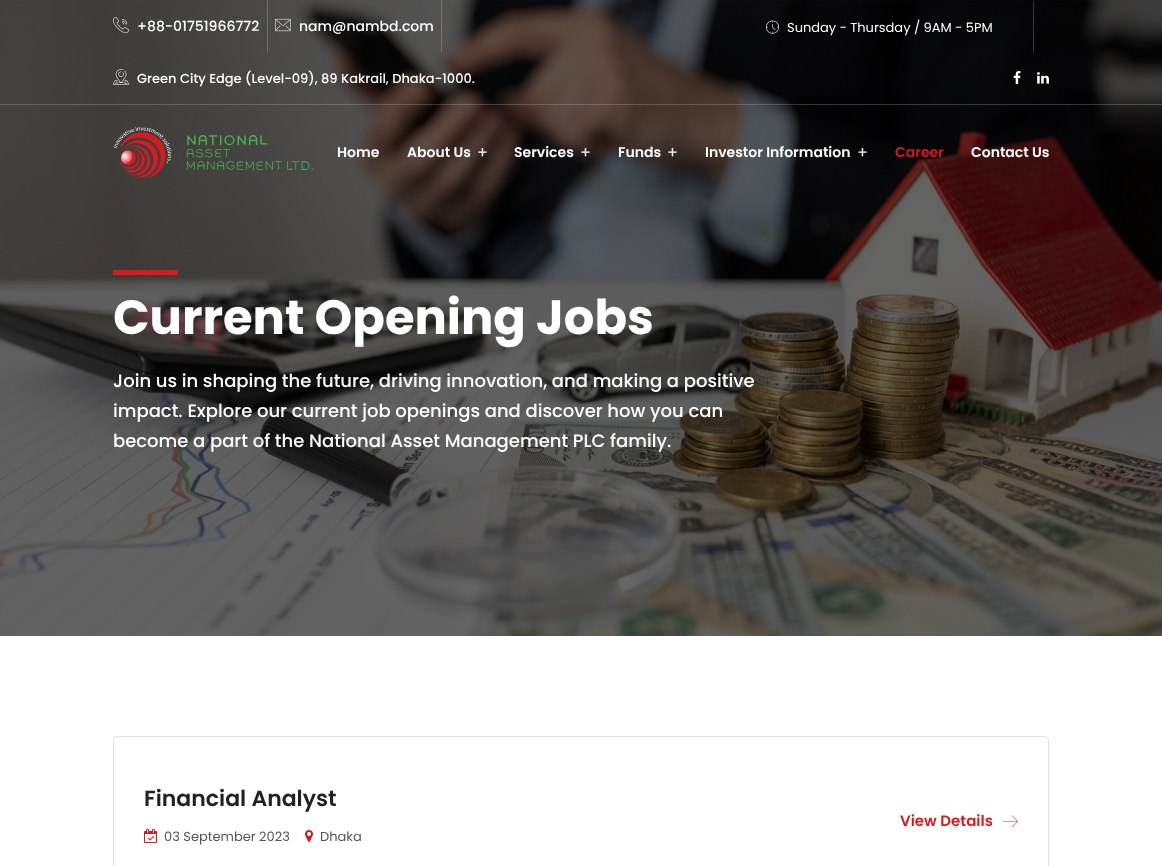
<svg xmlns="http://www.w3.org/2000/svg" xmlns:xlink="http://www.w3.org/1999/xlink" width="1162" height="866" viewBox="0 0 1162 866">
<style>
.cls-1{font:500 14px Poppins;fill:#ffffff}
.cls-2{font:500 13px Poppins;fill:#ffffff}
.cls-3{font:13px Poppins;fill:#ffffff}
.cls-4{font:600 14px Poppins;fill:#ffffff}
.cls-5{font:16px Poppins;fill:#ffffff}
.cls-6{font:600 14px Poppins;fill:#d71920}
.cls-7{font:bold 48px Poppins;fill:#ffffff}
.cls-8{font:500 18px Poppins;fill:#ffffff}
.cls-9{font:600 22px Poppins;fill:#222222}
.cls-10{font:13px Poppins;fill:#555555}
.cls-11{font:600 15px Poppins;fill:#d71920}
</style>
<rect width="100%" height="100%" fill="#ffffff"/>
<image xlink:href="image7.png" x="0" y="0" width="1162" height="636"/>
<rect fill="#ffffff" fill-opacity="0.2" x="0" y="104" width="1162" height="1"/>
<rect fill="#6f6e6d" x="267" y="0" width="1" height="52"/>
<image xlink:href="image0.png" x="113" y="17" width="16" height="16"/>
<rect fill="#ffffff" fill-opacity="0.2" x="441" y="0" width="1" height="52"/>
<image xlink:href="image1.png" x="275" y="18" width="16" height="14"/>
<image xlink:href="image2.png" x="113" y="69" width="16" height="16"/>
<rect fill="#ffffff" fill-opacity="0.2" x="1033" y="2" width="1" height="51"/>
<image xlink:href="image3.png" x="766" y="20" width="13" height="14"/>
<image xlink:href="image4.png" x="1013" y="71" width="8" height="13"/>
<image xlink:href="image5.png" x="1037" y="72" width="12" height="12"/>
<image xlink:href="image6.png" x="113" y="127" width="200" height="51"/>
<rect fill="#d71920" x="113" y="270" width="65" height="5"/>
<rect fill="none" stroke="#dee2e6" x="113.5" y="736.5" width="935" height="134" rx="3.5"/>
<image xlink:href="image8.png" x="144" y="829" width="13" height="14"/>
<image xlink:href="image9.png" x="305" y="830" width="8" height="12"/>
<image xlink:href="image10.png" x="1003" y="815" width="15" height="13"/>
<text class="cls-1" x="137" y="31">+88-01751966772</text>
<text class="cls-1" x="299" y="31">nam@nambd.com</text>
<text class="cls-2" x="137" y="83">Green City Edge (Level-09), 89 Kakrail, Dhaka-1000.</text>
<text class="cls-3" x="787" y="32">Sunday - Thursday / 9AM - 5PM</text>
<text class="cls-4" x="337" y="157">Home</text>
<text class="cls-4" x="407" y="157">About Us</text>
<text class="cls-5" x="477" y="158">+</text>
<text class="cls-4" x="514" y="157">Services</text>
<text class="cls-5" x="580" y="158">+</text>
<text class="cls-4" x="618" y="157">Funds</text>
<text class="cls-5" x="667" y="158">+</text>
<text class="cls-4" x="705" y="157">Investor Information</text>
<text class="cls-5" x="857" y="158">+</text>
<text class="cls-6" x="895" y="157">Career</text>
<text class="cls-4" x="971" y="157">Contact Us</text>
<text class="cls-7" x="113" y="334">Current Opening Jobs</text>
<text class="cls-8"><tspan x="113" y="387">Join us in shaping the future, driving innovation, and making a positive</tspan><tspan x="113" y="417">impact. Explore our current job openings and discover how you can</tspan><tspan x="113" y="447">become a part of the National Asset Management PLC family.</tspan></text>
<text class="cls-9" x="144" y="806">Financial Analyst</text>
<text class="cls-10" x="164" y="841">03 September 2023</text>
<text class="cls-10" x="320" y="841">Dhaka</text>
<text class="cls-11" x="900" y="826">View Details</text>
</svg>
